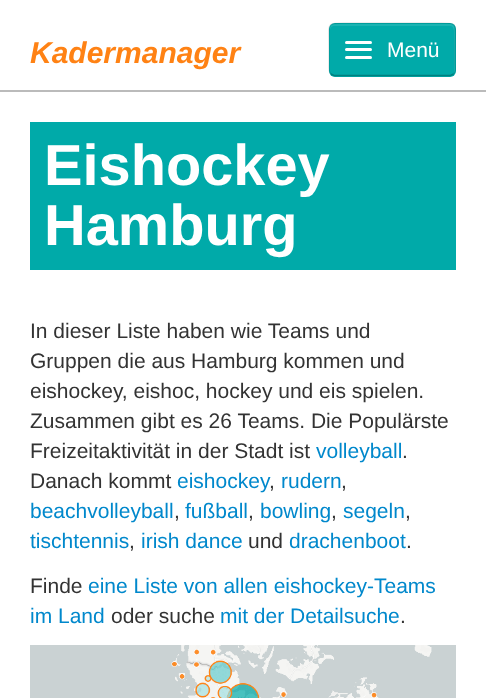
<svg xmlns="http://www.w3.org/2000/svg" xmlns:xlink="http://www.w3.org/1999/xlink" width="486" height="698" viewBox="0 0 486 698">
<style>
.cls-1{font:italic bold 30px Liberation Sans;fill:#ff8214}
.cls-2{font:21px Liberation Sans;fill:#ffffff}
.cls-3{font:bold 57.75px Liberation Sans;fill:#ffffff}
.cls-4{font:21px Liberation Sans;fill:#333333}
.cls-5{font:21px Liberation Sans;fill:#0088cc}
</style>
<rect width="100%" height="100%" fill="#ffffff"/>
<rect fill="#bbbbbb" x="0" y="90" width="486" height="2"/>
<rect fill="#00aaa9" x="329" y="23" width="127" height="54" rx="6"/>
<path fill="#1ab3b2" d="M334 26H450C455 26 454 34 454 37V73C455 72 455 71 455 70V29C455 26 453 24 450 24H335C332 24 330 26 330 29V30C330 28 332 26 334 26Z"/>
<path fill="none" stroke="#00807f" stroke-width="1.5" d="M453.5 74L450.5 75.5H334L331 74"/>
<path fill="none" stroke="#000000" stroke-opacity="0.1" stroke-width="1.5" d="M331 74C328 71.5 329 66.5 329 63.5V49.5C329 19.5 324 23 354 23H431C460.5 23 455 19.5 455 49.5V63.5C455 66.5 456.5 71.5 453.5 74"/>
<rect fill="#ffffff" x="345" y="41" width="27" height="3" rx="1.5"/>
<rect fill="#ffffff" x="345" y="48" width="27" height="3" rx="1.5"/>
<rect fill="#ffffff" x="345" y="56" width="27" height="3" rx="1.5"/>
<rect fill="#00aaa9" x="30" y="122" width="426" height="148"/>
<image xlink:href="image0.png" x="30" y="645" width="426" height="53"/>
<text class="cls-1" x="30" y="63">Kadermanager</text>
<text class="cls-2" x="387" y="57">Menü</text>
<text class="cls-3"><tspan x="44" y="185">Eishockey</tspan><tspan x="44" y="245">Hamburg</tspan></text>
<text class="cls-4"><tspan x="30" y="338">In dieser Liste haben wie Teams und</tspan><tspan x="30" y="368">Gruppen die aus Hamburg kommen und</tspan><tspan x="30" y="398">eishockey, eishoc, hockey und eis spielen.</tspan><tspan x="30" y="428">Zusammen gibt es 26 Teams. Die Populärste</tspan><tspan x="30" y="458">Freizeitaktivität in der Stadt ist</tspan></text>
<text class="cls-5" x="316" y="458">volleyball</text>
<text class="cls-4" x="402" y="458">.</text>
<text class="cls-4" x="30" y="488">Danach kommt</text>
<text class="cls-5" x="177" y="488">eishockey</text>
<text class="cls-4" x="269" y="488">,</text>
<text class="cls-5" x="281" y="488">rudern</text>
<text class="cls-4" x="341" y="488">,</text>
<text class="cls-5" x="30" y="518">beachvolleyball</text>
<text class="cls-4" x="174" y="518">,</text>
<text class="cls-5" x="185" y="518">fußball</text>
<text class="cls-4" x="248" y="518">,</text>
<text class="cls-5" x="260" y="518">bowling</text>
<text class="cls-4" x="331" y="518">,</text>
<text class="cls-5" x="343" y="518">segeln</text>
<text class="cls-4" x="405" y="518">,</text>
<text class="cls-5" x="30" y="548">tischtennis</text>
<text class="cls-4" x="129" y="548">,</text>
<text class="cls-5" x="141" y="548">irish dance</text>
<text class="cls-4" x="248" y="548">und</text>
<text class="cls-5" x="289" y="548">drachenboot</text>
<text class="cls-4" x="406" y="548">.</text>
<text class="cls-4" x="30" y="593">Finde</text>
<text class="cls-5" x="88" y="593">eine Liste von allen eishockey-Teams</text>
<text class="cls-5" x="30" y="623">im Land</text>
<text class="cls-4" x="111" y="623">oder suche</text>
<text class="cls-5" x="220" y="623">mit der Detailsuche</text>
<text class="cls-4" x="400" y="623">.</text>
</svg>
